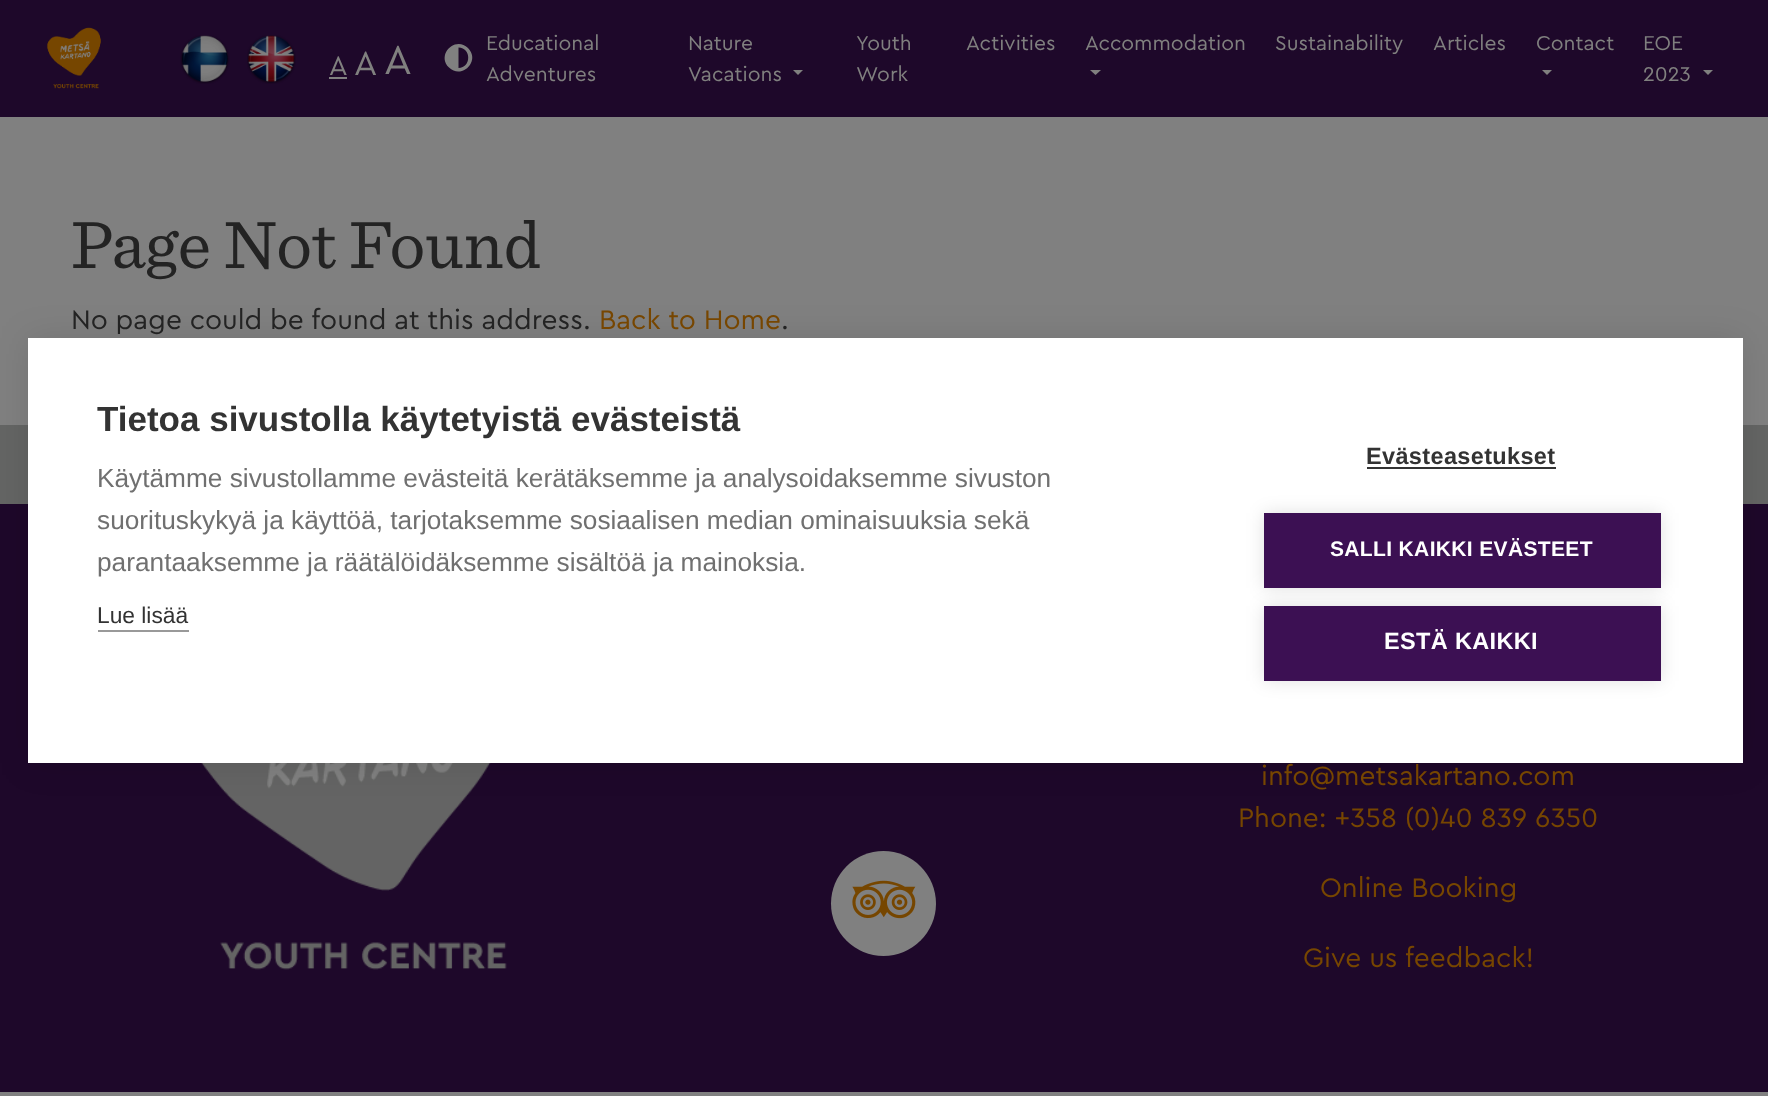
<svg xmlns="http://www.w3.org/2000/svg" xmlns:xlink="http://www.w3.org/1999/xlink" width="1768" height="1096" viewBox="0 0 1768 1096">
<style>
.cls-1{font:28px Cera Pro;fill:#80807f}
.cls-2{font:35px Cera Pro;fill:#80807f}
.cls-3{font:42px Cera Pro;fill:#80807f}
.cls-4{font:21px Cera Pro;fill:#80807f}
.cls-5{font:70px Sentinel;fill:#232323}
.cls-6{font:28px Cera Pro;fill:#232323}
.cls-7{font:28px Cera Pro;fill:#774600}
.cls-8{font:bold 35px Liberation Sans;fill:#333333}
.cls-9{font:26.25px Liberation Sans;fill:#707070}
.cls-10{font:22.75px Liberation Sans;fill:#333333}
.cls-11{font:bold 23.5px Liberation Sans;letter-spacing:0.35px;fill:#333333}
.cls-12{font:bold 21px Liberation Sans;letter-spacing:0.35px;fill:#ffffff}
.cls-13{font:bold 23.5px Liberation Sans;letter-spacing:0.35px;fill:#ffffff}
</style>
<rect width="100%" height="100%" fill="#808080"/>
<rect fill="#1e082a" x="0" y="0" width="1768" height="117"/>
<image xlink:href="image0.png" x="46" y="27" width="55" height="62"/>
<image xlink:href="image1.png" x="180" y="35" width="50" height="49"/>
<image xlink:href="image2.png" x="247" y="35" width="49" height="49"/>
<rect fill="#808080" x="329" y="77" width="18" height="2"/>
<path fill="#808080" d="M449 67.5C436 54.5 455.5 35.5 468 48C481 61 461.5 80 449 67.5ZM458.5 68C471.5 68 471.5 47.5 458.5 47.5Z"/>
<path fill="#80807f" d="M793 70H803L798 75Z"/>
<path fill="#80807f" d="M1090 70H1101L1095.5 75Z"/>
<path fill="#80807f" d="M1542 70H1552L1547 75Z"/>
<path fill="#80807f" d="M1703 70H1713L1708 75Z"/>
<rect fill="#646564" x="0" y="425" width="1768" height="79"/>
<rect fill="#1e082a" x="0" y="504" width="1768" height="588"/>
<image xlink:href="image3.png" x="201" y="763" width="306" height="207"/>
<rect fill="#000000" fill-opacity="0.1" filter="blur(17.5px)" x="28" y="338" width="1715" height="425"/>
<rect fill="#ffffff" x="28" y="338" width="1715" height="425"/>
<rect fill="#999999" x="98" y="630" width="91" height="2"/>
<rect fill="#333333" x="1367" y="467" width="189" height="2"/>
<rect fill="#000000" fill-opacity="0.12" filter="blur(9px)" x="1264" y="513" width="397" height="75"/>
<rect fill="#3c1053" x="1264" y="513" width="397" height="75"/>
<rect fill="#000000" fill-opacity="0.12" filter="blur(9px)" x="1264" y="606" width="397" height="75"/>
<rect fill="#3c1053" x="1264" y="606" width="397" height="75"/>
<circle fill="#808080" cx="883.5" cy="903.5" r="52.5"/>
<image xlink:href="image4.png" x="852" y="880" width="64" height="39"/>
<text class="cls-1" x="329" y="75">A</text>
<text class="cls-2" x="354" y="75">A</text>
<text class="cls-3" x="384" y="74">A</text>
<text class="cls-4"><tspan x="486" y="50">Educational</tspan><tspan x="486" y="81">Adventures</tspan></text>
<text class="cls-4"><tspan x="688" y="50">Nature</tspan><tspan x="688" y="81">Vacations</tspan></text>
<text class="cls-4"><tspan x="856" y="50">Youth</tspan><tspan x="856" y="81">Work</tspan></text>
<text class="cls-4" x="966" y="50">Activities</text>
<text class="cls-4" x="1085" y="50">Accommodation</text>
<text class="cls-4" x="1275" y="50">Sustainability</text>
<text class="cls-4" x="1433" y="50">Articles</text>
<text class="cls-4" x="1536" y="50">Contact</text>
<text class="cls-4"><tspan x="1643" y="50">EOE</tspan><tspan x="1643" y="81">2023</tspan></text>
<text class="cls-5" x="71" y="268">Page Not Found</text>
<text class="cls-6" x="71" y="329">No page could be found at this address.</text>
<text class="cls-7" x="599" y="329">Back to Home</text>
<text class="cls-6" x="781" y="329">.</text>
<text class="cls-8" x="97" y="431">Tietoa sivustolla käytetyistä evästeistä</text>
<text class="cls-9"><tspan x="97" y="487">Käytämme sivustollamme evästeitä kerätäksemme ja analysoidaksemme sivuston</tspan><tspan x="97" y="529">suorituskykyä ja käyttöä, tarjotaksemme sosiaalisen median ominaisuuksia sekä</tspan><tspan x="97" y="571">parantaaksemme ja räätälöidäksemme sisältöä ja mainoksia.</tspan></text>
<text class="cls-10" x="97" y="623">Lue lisää</text>
<text class="cls-11" x="1366" y="464">Evästeasetukset</text>
<text class="cls-12" x="1330" y="556">SALLI KAIKKI EVÄSTEET</text>
<text class="cls-13" x="1384" y="649">ESTÄ KAIKKI</text>
<text class="cls-7" x="1261" y="785">info@metsakartano.com</text>
<text class="cls-7" x="1238" y="827">Phone: +358 (0)40 839 6350</text>
<text class="cls-7" x="1320" y="897">Online Booking</text>
<text class="cls-7" x="1303" y="967">Give us feedback!</text>
</svg>
